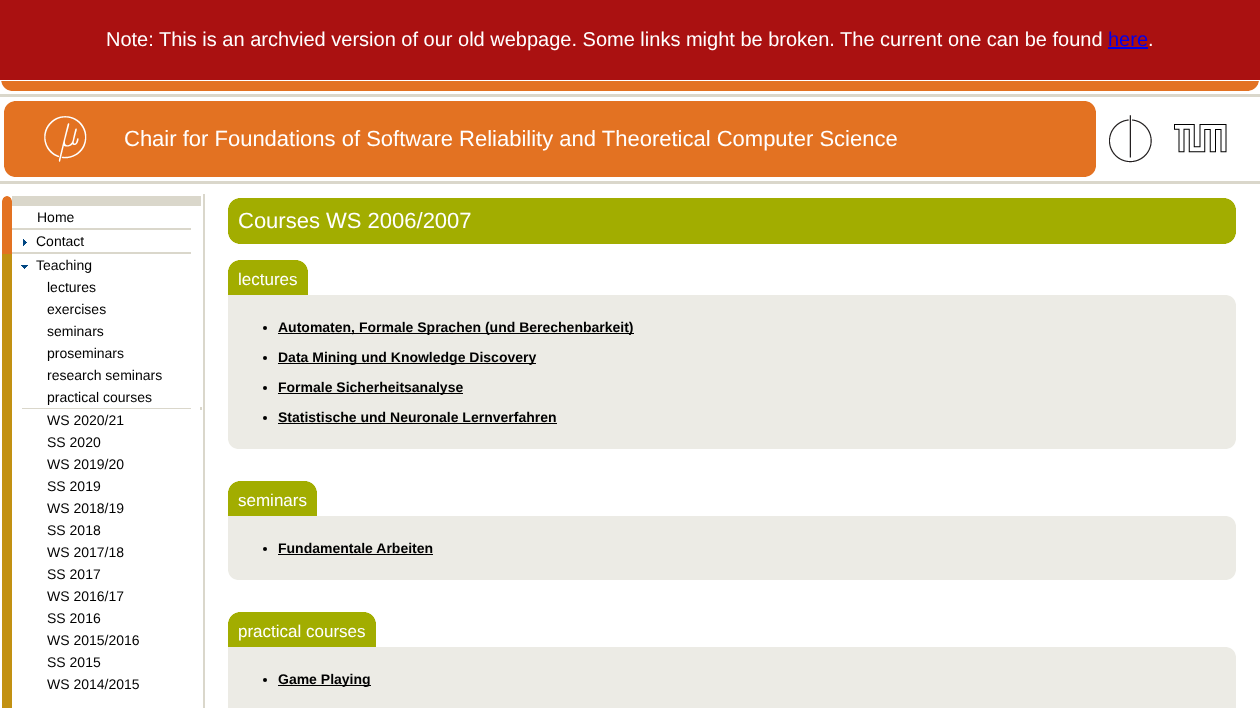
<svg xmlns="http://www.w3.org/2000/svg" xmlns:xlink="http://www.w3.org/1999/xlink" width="1260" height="708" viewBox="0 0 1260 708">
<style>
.cls-1{font:20px Liberation Sans;fill:#ffffff}
.cls-2{font:20px Liberation Sans;fill:#0000ee}
.cls-3{font:22px Liberation Sans;fill:#ffffff}
.cls-4{font:14px Liberation Sans;fill:#000000}
.cls-5{font:17px Liberation Sans;fill:#ffffff}
.cls-6{font:bold 14px Liberation Sans;fill:#000000}
</style>
<rect width="100%" height="100%" fill="#ffffff"/>
<rect fill="#aa1111" x="0" y="0" width="1260" height="80"/>
<rect fill="#0000ee" x="1108" y="47" width="40" height="2"/>
<rect fill="#e37222" x="11" y="81" width="1238" height="10"/>
<image xlink:href="image0.png" x="1" y="81" width="10" height="10"/>
<image xlink:href="image1.png" x="1249" y="81" width="10" height="10"/>
<rect fill="#dad7cb" x="0" y="94" width="1260" height="3"/>
<rect fill="#e37222" x="4" y="101" width="1092" height="76"/>
<rect fill="#ffffff" x="4" y="101" width="10" height="10"/>
<image xlink:href="image2.png" x="4" y="101" width="10" height="10"/>
<rect fill="#ffffff" x="1086" y="101" width="10" height="10"/>
<image xlink:href="image3.png" x="1086" y="101" width="10" height="10"/>
<image xlink:href="image4.png" x="44" y="116" width="43" height="46"/>
<rect fill="#ffffff" x="4" y="167" width="10" height="10"/>
<image xlink:href="image0.png" x="4" y="167" width="10" height="10"/>
<rect fill="#ffffff" x="1086" y="167" width="10" height="10"/>
<image xlink:href="image1.png" x="1086" y="167" width="10" height="10"/>
<image xlink:href="image5.png" x="1109" y="115" width="43" height="48"/>
<image xlink:href="image6.png" x="1174" y="124" width="53" height="29"/>
<rect fill="#dad7cb" x="0" y="181" width="1260" height="3"/>
<rect fill="#dad7cb" x="12" y="196" width="189" height="10"/>
<image xlink:href="image7.png" x="2" y="196" width="10" height="10"/>
<rect fill="#e37222" x="2" y="206" width="10" height="48"/>
<rect fill="#dad7cb" x="12" y="228" width="179" height="2"/>
<image xlink:href="image8.png" x="23" y="239" width="4" height="7"/>
<rect fill="#dad7cb" x="12" y="252" width="179" height="2"/>
<rect fill="#c29112" x="2" y="254" width="10" height="454"/>
<image xlink:href="image9.png" x="21" y="265" width="7" height="4"/>
<rect fill="#dad7cb" x="200" y="407" width="2" height="3"/>
<rect fill="#dad7cb" x="22" y="408" width="169" height="1"/>
<rect fill="#dad7cb" x="203" y="194" width="2" height="514"/>
<rect fill="#a2ad00" x="228" y="198" width="1008" height="46"/>
<image xlink:href="image10.png" x="228" y="198" width="10" height="10"/>
<image xlink:href="image11.png" x="1226" y="198" width="10" height="10"/>
<image xlink:href="image12.png" x="228" y="234" width="10" height="10"/>
<image xlink:href="image13.png" x="1226" y="234" width="10" height="10"/>
<image xlink:href="image10.png" x="228" y="260" width="10" height="10"/>
<rect fill="#a2ad00" x="238" y="260" width="60" height="10"/>
<image xlink:href="image11.png" x="298" y="260" width="10" height="10"/>
<rect fill="#a2ad00" x="228" y="270" width="80" height="25"/>
<rect fill="#ecebe5" x="228" y="295" width="1008" height="10"/>
<image xlink:href="image14.png" x="1227" y="295" width="9" height="9"/>
<rect fill="#ecebe5" x="228" y="305" width="1008" height="134"/>
<circle fill="#000000" cx="265" cy="328" r="2"/>
<rect fill="#000000" x="278" y="333" width="356" height="1"/>
<circle fill="#000000" cx="265" cy="358" r="2"/>
<rect fill="#000000" x="278" y="363" width="258" height="1"/>
<circle fill="#000000" cx="265" cy="388" r="2"/>
<rect fill="#000000" x="278" y="393" width="185" height="1"/>
<circle fill="#000000" cx="265" cy="418" r="2"/>
<rect fill="#000000" x="278" y="423" width="279" height="1"/>
<rect fill="#ecebe5" x="228" y="439" width="1008" height="10"/>
<image xlink:href="image15.png" x="228" y="440" width="9" height="9"/>
<image xlink:href="image16.png" x="1227" y="440" width="9" height="9"/>
<image xlink:href="image10.png" x="228" y="481" width="10" height="10"/>
<rect fill="#a2ad00" x="238" y="481" width="69" height="10"/>
<image xlink:href="image11.png" x="307" y="481" width="10" height="10"/>
<rect fill="#a2ad00" x="228" y="491" width="89" height="25"/>
<rect fill="#ecebe5" x="228" y="516" width="1008" height="10"/>
<image xlink:href="image14.png" x="1227" y="516" width="9" height="9"/>
<rect fill="#ecebe5" x="228" y="526" width="1008" height="44"/>
<circle fill="#000000" cx="265" cy="549" r="2"/>
<rect fill="#000000" x="278" y="554" width="155" height="1"/>
<rect fill="#ecebe5" x="228" y="570" width="1008" height="10"/>
<image xlink:href="image15.png" x="228" y="571" width="9" height="9"/>
<image xlink:href="image16.png" x="1227" y="571" width="9" height="9"/>
<image xlink:href="image10.png" x="228" y="612" width="10" height="10"/>
<rect fill="#a2ad00" x="238" y="612" width="128" height="10"/>
<image xlink:href="image11.png" x="366" y="612" width="10" height="10"/>
<rect fill="#a2ad00" x="228" y="622" width="148" height="25"/>
<rect fill="#ecebe5" x="228" y="647" width="1008" height="10"/>
<image xlink:href="image14.png" x="1227" y="647" width="9" height="9"/>
<rect fill="#ecebe5" x="228" y="657" width="1008" height="51"/>
<circle fill="#000000" cx="265" cy="680" r="2"/>
<rect fill="#000000" x="278" y="685" width="93" height="1"/>
<text class="cls-1" x="106" y="46">Note: This is an archvied version of our old webpage. Some links might be broken. The current one can be found</text>
<text class="cls-2" x="1108" y="46">here</text>
<text class="cls-1" x="1148" y="46">.</text>
<text class="cls-3" x="124" y="146">Chair for Foundations of Software Reliability and Theoretical Computer Science</text>
<text class="cls-4" x="37" y="222">Home</text>
<text class="cls-4"><tspan x="36" y="246">Contact</tspan><tspan x="36" y="270">Teaching</tspan></text>
<text class="cls-4"><tspan x="47" y="292">lectures</tspan><tspan x="47" y="314">exercises</tspan><tspan x="47" y="336">seminars</tspan><tspan x="47" y="358">proseminars</tspan><tspan x="47" y="380">research seminars</tspan><tspan x="47" y="402">practical courses</tspan><tspan x="47" y="425">WS 2020/21</tspan><tspan x="47" y="447">SS 2020</tspan><tspan x="47" y="469">WS 2019/20</tspan><tspan x="47" y="491">SS 2019</tspan><tspan x="47" y="513">WS 2018/19</tspan><tspan x="47" y="535">SS 2018</tspan><tspan x="47" y="557">WS 2017/18</tspan><tspan x="47" y="579">SS 2017</tspan><tspan x="47" y="601">WS 2016/17</tspan><tspan x="47" y="623">SS 2016</tspan><tspan x="47" y="645">WS 2015/2016</tspan><tspan x="47" y="667">SS 2015</tspan><tspan x="47" y="689">WS 2014/2015</tspan></text>
<text class="cls-3" x="238" y="228">Courses WS 2006/2007</text>
<text class="cls-5" x="238" y="285">lectures</text>
<text class="cls-6" x="278" y="332">Automaten, Formale Sprachen (und Berechenbarkeit)</text>
<text class="cls-6" x="278" y="362">Data Mining und Knowledge Discovery</text>
<text class="cls-6" x="278" y="392">Formale Sicherheitsanalyse</text>
<text class="cls-6" x="278" y="422">Statistische und Neuronale Lernverfahren</text>
<text class="cls-5" x="238" y="506">seminars</text>
<text class="cls-6" x="278" y="553">Fundamentale Arbeiten</text>
<text class="cls-5" x="238" y="637">practical courses</text>
<text class="cls-6" x="278" y="684">Game Playing</text>
</svg>
